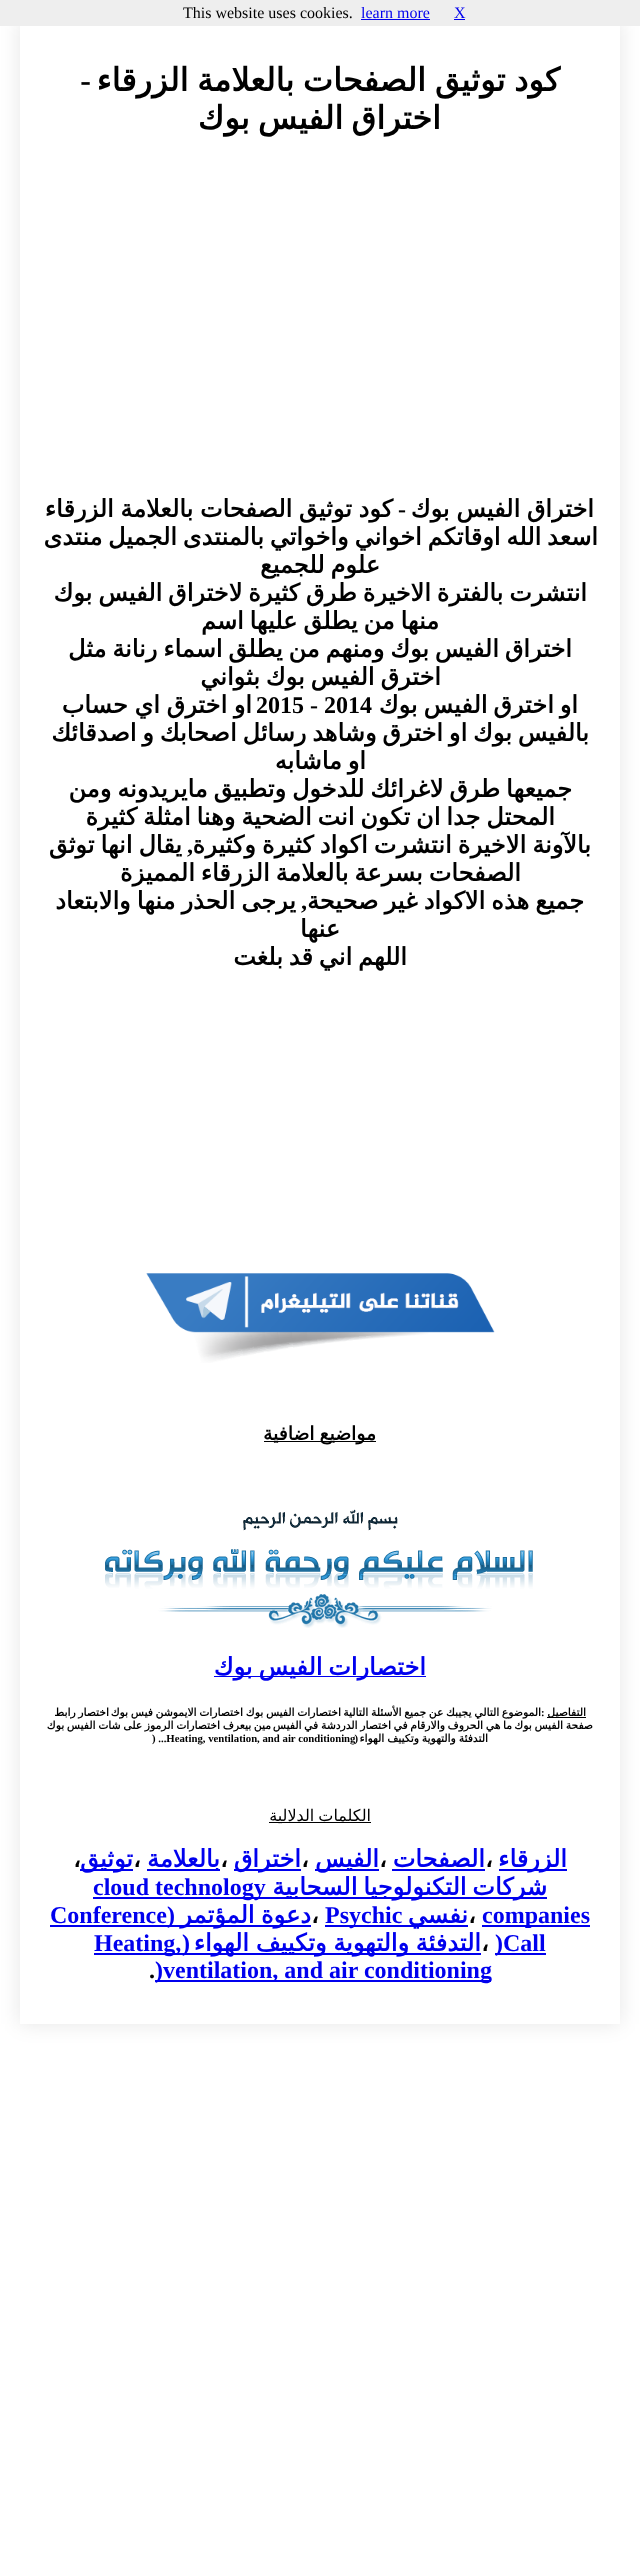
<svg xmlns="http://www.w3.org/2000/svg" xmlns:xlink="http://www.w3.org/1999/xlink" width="640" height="2574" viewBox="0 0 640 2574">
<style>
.cls-1{font:16px Liberation Serif;fill:#0000ee}
.cls-2{font:16px Liberation Serif;fill:#000000}
.cls-3{font:bold 32px DejaVu Sans;direction:rtl;fill:#000000}
.cls-4{font:bold 32px Liberation Serif;direction:rtl;fill:#000000}
.cls-5{font:bold 24px DejaVu Sans;direction:rtl;fill:#000000}
.cls-6{font:bold 24px Liberation Serif;direction:rtl;fill:#000000}
.cls-7{font:bold 24px Liberation Serif;fill:#000000}
.cls-8{font:bold 18.75px DejaVu Sans;direction:rtl;fill:#000000}
.cls-9{font:bold 24px DejaVu Sans;direction:rtl;fill:#0000ee}
.cls-10{font:bold 10.75px DejaVu Sans;direction:rtl;fill:#000000}
.cls-11{font:bold 10.75px Liberation Serif;fill:#000000}
.cls-12{font:bold 10.75px Liberation Serif;direction:rtl;fill:#000000}
.cls-13{font:16px DejaVu Sans;direction:rtl;fill:#000000}
.cls-14{font:bold 24px DejaVu Sans;fill:#000000}
.cls-15{font:bold 24px Liberation Serif;fill:#0000ee}
.cls-16{font:bold 24px Liberation Serif;direction:rtl;fill:#0000ee}
</style>
<defs>
<clipPath id="clip1"><path d="M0 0H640V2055H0ZM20 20H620V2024H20Z" clip-rule="evenodd"/></clipPath>
</defs>
<rect width="100%" height="100%" fill="#ffffff"/>
<g clip-path="url(#clip1)">
<rect fill="#000000" fill-opacity="0.1" filter="blur(10px)" x="20" y="20" width="600" height="2004"/>
</g>
<rect fill="#eeeeee" x="0" y="0" width="640" height="26"/>
<rect fill="#0000ee" x="454" y="19" width="11" height="1"/>
<rect fill="#0000ee" x="361" y="19" width="69" height="1"/>
<image xlink:href="image0.png" x="146" y="1273" width="349" height="90"/>
<rect fill="#000000" x="264" y="1441" width="112" height="1"/>
<image xlink:href="image1.png" x="105" y="1509" width="428" height="119"/>
<rect fill="#0000ee" x="214" y="1676" width="212" height="1"/>
<rect fill="#000000" x="547" y="1717" width="39" height="1"/>
<rect fill="#000000" x="269" y="1822" width="102" height="1"/>
<rect fill="#0000ee" x="499" y="1869" width="68" height="2"/>
<rect fill="#0000ee" x="392" y="1869" width="93" height="2"/>
<rect fill="#0000ee" x="315" y="1869" width="64" height="2"/>
<rect fill="#0000ee" x="234" y="1869" width="67" height="2"/>
<rect fill="#0000ee" x="147" y="1869" width="73" height="2"/>
<rect fill="#0000ee" x="80" y="1869" width="53" height="2"/>
<rect fill="#0000ee" x="93" y="1897" width="454" height="2"/>
<rect fill="#0000ee" x="482" y="1925" width="108" height="2"/>
<rect fill="#0000ee" x="325" y="1925" width="143" height="2"/>
<rect fill="#0000ee" x="50" y="1925" width="261" height="2"/>
<rect fill="#0000ee" x="495" y="1953" width="51" height="2"/>
<rect fill="#0000ee" x="94" y="1953" width="387" height="2"/>
<rect fill="#0000ee" x="155" y="1980" width="336" height="2"/>
<text class="cls-1" x="454" y="18">X</text>
<text class="cls-1" x="361" y="18">learn more</text>
<text class="cls-2" x="183" y="18">This website uses cookies.</text>
<text class="cls-3" x="560" y="91" word-spacing="-1.5">كود توثيق الصفحات بالعلامة الزرقاء</text>
<text class="cls-4" x="91" y="91">-</text>
<text class="cls-3" x="441" y="129" word-spacing="-2">اختراق الفيس بوك</text>
<text class="cls-5" x="594" y="517" word-spacing="-1">اختراق الفيس بوك</text>
<text class="cls-6" x="406" y="517">-</text>
<text class="cls-5" x="393" y="517" word-spacing="-1">كود توثيق الصفحات بالعلامة الزرقاء</text>
<text class="cls-5" x="598" y="545" word-spacing="-1.75">اسعد الله اوقاتكم اخواني واخواتي بالمنتدى الجميل منتدى</text>
<text class="cls-5" x="380" y="573" word-spacing="-1.75">علوم للجميع</text>
<text class="cls-5" x="587" y="601" word-spacing="-1.75">انتشرت بالفترة الاخيرة طرق كثيرة لاختراق الفيس بوك</text>
<text class="cls-5" x="439" y="629" word-spacing="-1.75">منها من يطلق عليها اسم</text>
<text class="cls-5" x="572" y="657" word-spacing="-1.75">اختراق الفيس بوك ومنهم من يطلق اسماء رنانة مثل</text>
<text class="cls-5" x="441" y="685" word-spacing="-1.75">اخترق الفيس بوك بثواني</text>
<text class="cls-5" x="578" y="713" word-spacing="-1.75">او اخترق الفيس بوك</text>
<text class="cls-7" x="256" y="713">2015 - 2014</text>
<text class="cls-5" x="252" y="713" word-spacing="-1">او اخترق اي حساب</text>
<text class="cls-5" x="589" y="741" word-spacing="-1.75">بالفيس بوك او اخترق وشاهد رسائل اصحابك و اصدقائك</text>
<text class="cls-5" x="366" y="769" word-spacing="-1.75">او ماشابه</text>
<text class="cls-5" x="572" y="797" word-spacing="-1.75">جميعها طرق لاغرائك للدخول وتطبيق مايريدونه ومن</text>
<text class="cls-5" x="555" y="825" word-spacing="-1.75">المحتل جدا ان تكون انت الضحية وهنا امثلة كثيرة</text>
<text class="cls-5" x="591" y="853" word-spacing="-1.5">بالآونة الاخيرة انتشرت اكواد كثيرة وكثيرة</text>
<text class="cls-6" x="193" y="853">,</text>
<text class="cls-5" x="182" y="853" word-spacing="-1.5">يقال انها توثق</text>
<text class="cls-5" x="521" y="881" word-spacing="-1.75">الصفحات بسرعة بالعلامة الزرقاء المميزة</text>
<text class="cls-5" x="584" y="909" word-spacing="-1.5">جميع هذه الاكواد غير صحيحة</text>
<text class="cls-6" x="307" y="909">,</text>
<text class="cls-5" x="296" y="909" word-spacing="-1.5">يرجى الحذر منها والابتعاد</text>
<text class="cls-5" x="340" y="937">عنها</text>
<text class="cls-5" x="407" y="965" word-spacing="-1.75">اللهم اني قد بلغت</text>
<text class="cls-8" x="376" y="1440" word-spacing="-1">مواضيع اضافية</text>
<text class="cls-9" x="426" y="1675" word-spacing="-1.75">اختصارات الفيس بوك</text>
<text class="cls-10" x="586" y="1716">التفاصيل</text>
<text class="cls-10" x="341" y="1716" word-spacing="-0.75">اختصارات الفيس بوك</text>
<text class="cls-10" x="243" y="1716" word-spacing="-0.75">اختصارات الايموشن فيس بوك</text>
<text class="cls-10" x="109" y="1716" word-spacing="-0.75">اختصار رابط</text>
<text class="cls-11" x="541" y="1716">:</text>
<text class="cls-10" x="541" y="1716" word-spacing="-0.75">الموضوع التالي يجيبك عن جميع الأسئلة التالية</text>
<text class="cls-10" x="593" y="1729" word-spacing="-0.75">صفحة الفيس بوك</text>
<text class="cls-10" x="512" y="1729" word-spacing="-0.75">ما هي الحروف والارقام في اختصار الدردشة في الفيس</text>
<text class="cls-10" x="271" y="1729" word-spacing="-0.75">مين بيعرف اختصارات الرموز على شات الفيس بوك</text>
<text class="cls-10" x="488" y="1742" word-spacing="-0.5">التدفئة والتهوية وتكييف الهواء</text>
<text class="cls-12" x="358" y="1742">(</text>
<text class="cls-11" x="152" y="1742">) ...Heating, ventilation, and air conditioning</text>
<text class="cls-13" x="371" y="1821" word-spacing="-1">الكلمات الدلالية</text>
<text class="cls-9" x="567" y="1867">الزرقاء</text>
<text class="cls-14" x="485" y="1867">،</text>
<text class="cls-9" x="485" y="1867">الصفحات</text>
<text class="cls-14" x="379" y="1867">،</text>
<text class="cls-9" x="379" y="1867">الفيس</text>
<text class="cls-14" x="301" y="1867">،</text>
<text class="cls-9" x="301" y="1867">اختراق</text>
<text class="cls-14" x="220" y="1867">،</text>
<text class="cls-9" x="220" y="1867">بالعلامة</text>
<text class="cls-14" x="133" y="1867">،</text>
<text class="cls-9" x="133" y="1867">توثيق</text>
<text class="cls-14" x="73" y="1867">،</text>
<text class="cls-9" x="547" y="1895" word-spacing="-1.75">شركات التكنولوجيا السحابية</text>
<text class="cls-15" x="93" y="1895">cloud technology</text>
<text class="cls-15" x="482" y="1923">companies</text>
<text class="cls-14" x="468" y="1923">،</text>
<text class="cls-9" x="468" y="1923">نفسي</text>
<text class="cls-15" x="325" y="1923">Psychic</text>
<text class="cls-14" x="311" y="1923">،</text>
<text class="cls-9" x="311" y="1923" word-spacing="-1">دعوة المؤتمر</text>
<text class="cls-16" x="175" y="1923">(</text>
<text class="cls-15" x="50" y="1923">Conference</text>
<text class="cls-15" x="495" y="1951">)Call</text>
<text class="cls-14" x="481" y="1951">،</text>
<text class="cls-9" x="481" y="1951" word-spacing="-1">التدفئة والتهوية وتكييف الهواء</text>
<text class="cls-16" x="190" y="1951">(</text>
<text class="cls-15" x="94" y="1951">Heating,</text>
<text class="cls-15" x="155" y="1978">)ventilation, and air conditioning</text>
<text class="cls-7" x="149" y="1978">.</text>
</svg>
